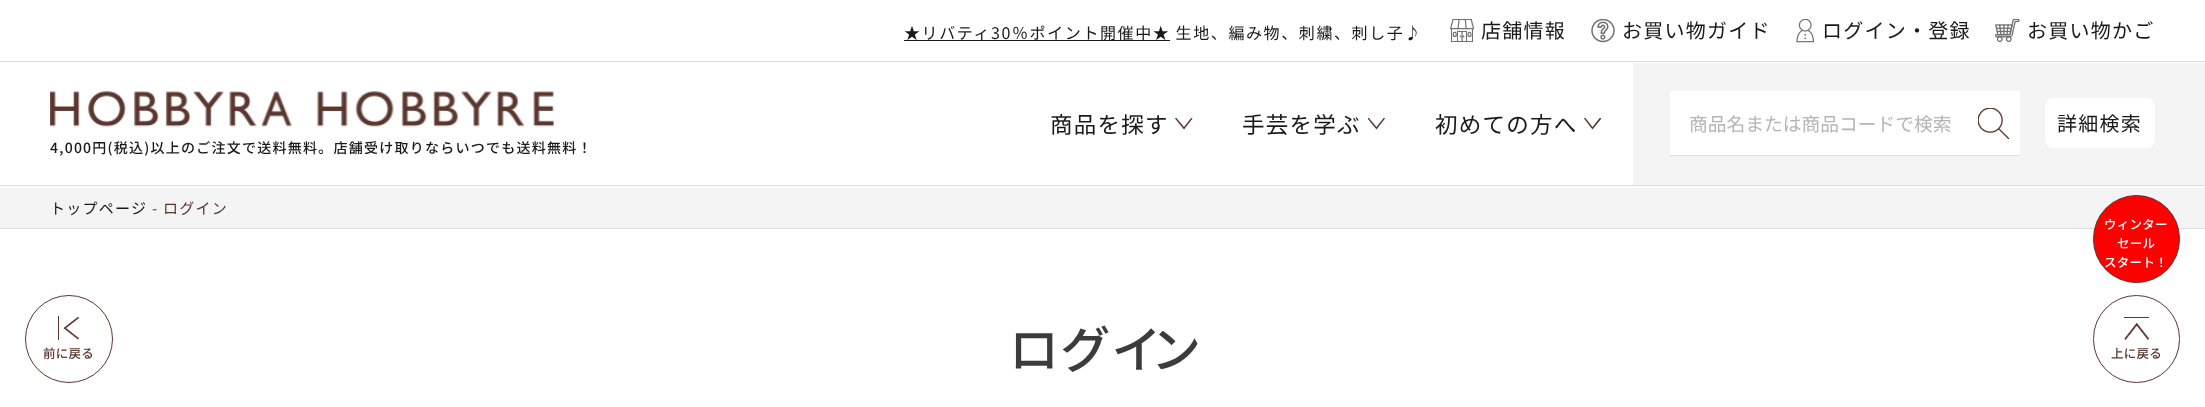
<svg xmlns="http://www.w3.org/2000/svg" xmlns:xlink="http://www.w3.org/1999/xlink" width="2205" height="407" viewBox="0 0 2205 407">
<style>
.cls-1{font:16px Noto Sans JP;letter-spacing:1.6px;fill:#191919}
.cls-2{font:20px Noto Sans JP;letter-spacing:1.25px;fill:#191919}
.cls-3{font:22.5px Noto Sans JP;letter-spacing:1.25px;fill:#191919}
.cls-4{font:18.75px Noto Sans JP;fill:#b5b5b5}
.cls-5{font:500 14px Noto Sans JP;letter-spacing:1.25px;fill:#191919}
.cls-6{font:15px Noto Sans JP;letter-spacing:1.25px;fill:#191919}
.cls-7{font:15px Noto Sans JP;letter-spacing:1.25px;fill:#5a372e}
.cls-8{font:500 50px Noto Sans JP;letter-spacing:1.25px;fill:#3c3c3c}
.cls-9{font:500 12.5px Noto Sans JP;letter-spacing:0.25px;fill:#ffffff}
.cls-10{font:500 12.5px Noto Sans JP;letter-spacing:0.25px;fill:#5a372e}
</style>
<defs>
<clipPath id="clip1"><rect x="1175" y="118" width="18" height="12"/></clipPath>
<clipPath id="clip2"><rect x="1368" y="118" width="17" height="12"/></clipPath>
<clipPath id="clip3"><rect x="1584" y="118" width="17" height="12"/></clipPath>
</defs>
<rect width="100%" height="100%" fill="#ffffff"/>
<rect fill="#dddddd" x="0" y="61" width="2205" height="1"/>
<rect fill="#191919" x="904" y="40" width="266" height="1"/>
<image xlink:href="image0.png" x="1450" y="19" width="24" height="23"/>
<image xlink:href="image1.png" x="1591" y="19" width="24" height="24"/>
<image xlink:href="image2.png" x="1796" y="19" width="18" height="24"/>
<image xlink:href="image3.png" x="1995" y="19" width="25" height="23"/>
<rect fill="#dddddd" x="0" y="185" width="2205" height="1"/>
<g clip-path="url(#clip1)">
<path fill="#5a372e" fill-rule="evenodd" d="M1191.5 117.5L1184 127L1176 117.5L1175 118.5L1184 129.5L1192.5 118.5Z"/>
</g>
<g clip-path="url(#clip2)">
<path fill="#5a372e" fill-rule="evenodd" d="M1384 117.5L1376.5 127L1368.5 117.5L1367.5 118.5L1376.5 129.5L1385 118.5Z"/>
</g>
<g clip-path="url(#clip3)">
<path fill="#5a372e" fill-rule="evenodd" d="M1600 117.5L1592.5 127L1585 117.5L1584 118.5L1592.5 129.5L1601.5 118.5Z"/>
</g>
<rect fill="#f4f4f4" x="1633" y="63" width="572" height="122"/>
<rect fill="#ffffff" x="1670" y="91" width="350" height="64"/>
<rect fill="#dddddd" x="1670" y="155" width="350" height="1"/>
<image xlink:href="image4.png" x="1978" y="108" width="32" height="31"/>
<rect fill="#ffffff" x="2045" y="98" width="110" height="50" rx="8"/>
<image xlink:href="image5.png" x="50" y="91" width="504" height="36"/>
<rect fill="#f4f4f4" x="0" y="188" width="2205" height="40"/>
<rect fill="#dddddd" x="0" y="228" width="2205" height="1"/>
<rect fill="#ff0000" stroke="#5a372e" x="2093.5" y="195.5" width="86" height="87" rx="43"/>
<circle fill="none" stroke="#5a372e" cx="69" cy="339" r="43.5"/>
<image xlink:href="image6.png" x="58" y="316" width="21" height="24"/>
<rect fill="none" stroke="#5a372e" x="2093.5" y="295.5" width="86" height="87" rx="43"/>
<image xlink:href="image7.png" x="2124" y="317" width="25" height="23"/>
<text class="cls-1" x="904" y="39">★リバティ30％ポイント開催中★ 生地、編み物、刺繍、刺し子♪</text>
<text class="cls-2" x="1481" y="38">店舗情報</text>
<text class="cls-2" x="1622" y="38">お買い物ガイド</text>
<text class="cls-2" x="1822" y="38">ログイン・登録</text>
<text class="cls-2" x="2027" y="38">お買い物かご</text>
<text class="cls-3" x="1050" y="133">商品を探す</text>
<text class="cls-3" x="1242" y="133">手芸を学ぶ</text>
<text class="cls-3" x="1435" y="133">初めての方へ</text>
<text class="cls-4" x="1689" y="131">商品名または商品コードで検索</text>
<text class="cls-2" x="2057" y="131">詳細検索</text>
<text class="cls-5" x="50" y="153">4,000円(税込)以上のご注文で送料無料。店舗受け取りならいつでも送料無料！</text>
<text class="cls-6" x="50" y="214">トップページ</text>
<text class="cls-7" x="152" y="214">- ログイン</text>
<text class="cls-8" x="1009" y="368">ログイ</text>
<text class="cls-8" x="1151" y="368">ン</text>
<text class="cls-9" x="2104" y="229">ウィンター</text>
<text class="cls-9" x="2117" y="248">セール</text>
<text class="cls-9" x="2104" y="267">スタート！</text>
<text class="cls-10" x="43" y="358">前に戻る</text>
<text class="cls-10" x="2111" y="358">上に戻る</text>
</svg>
